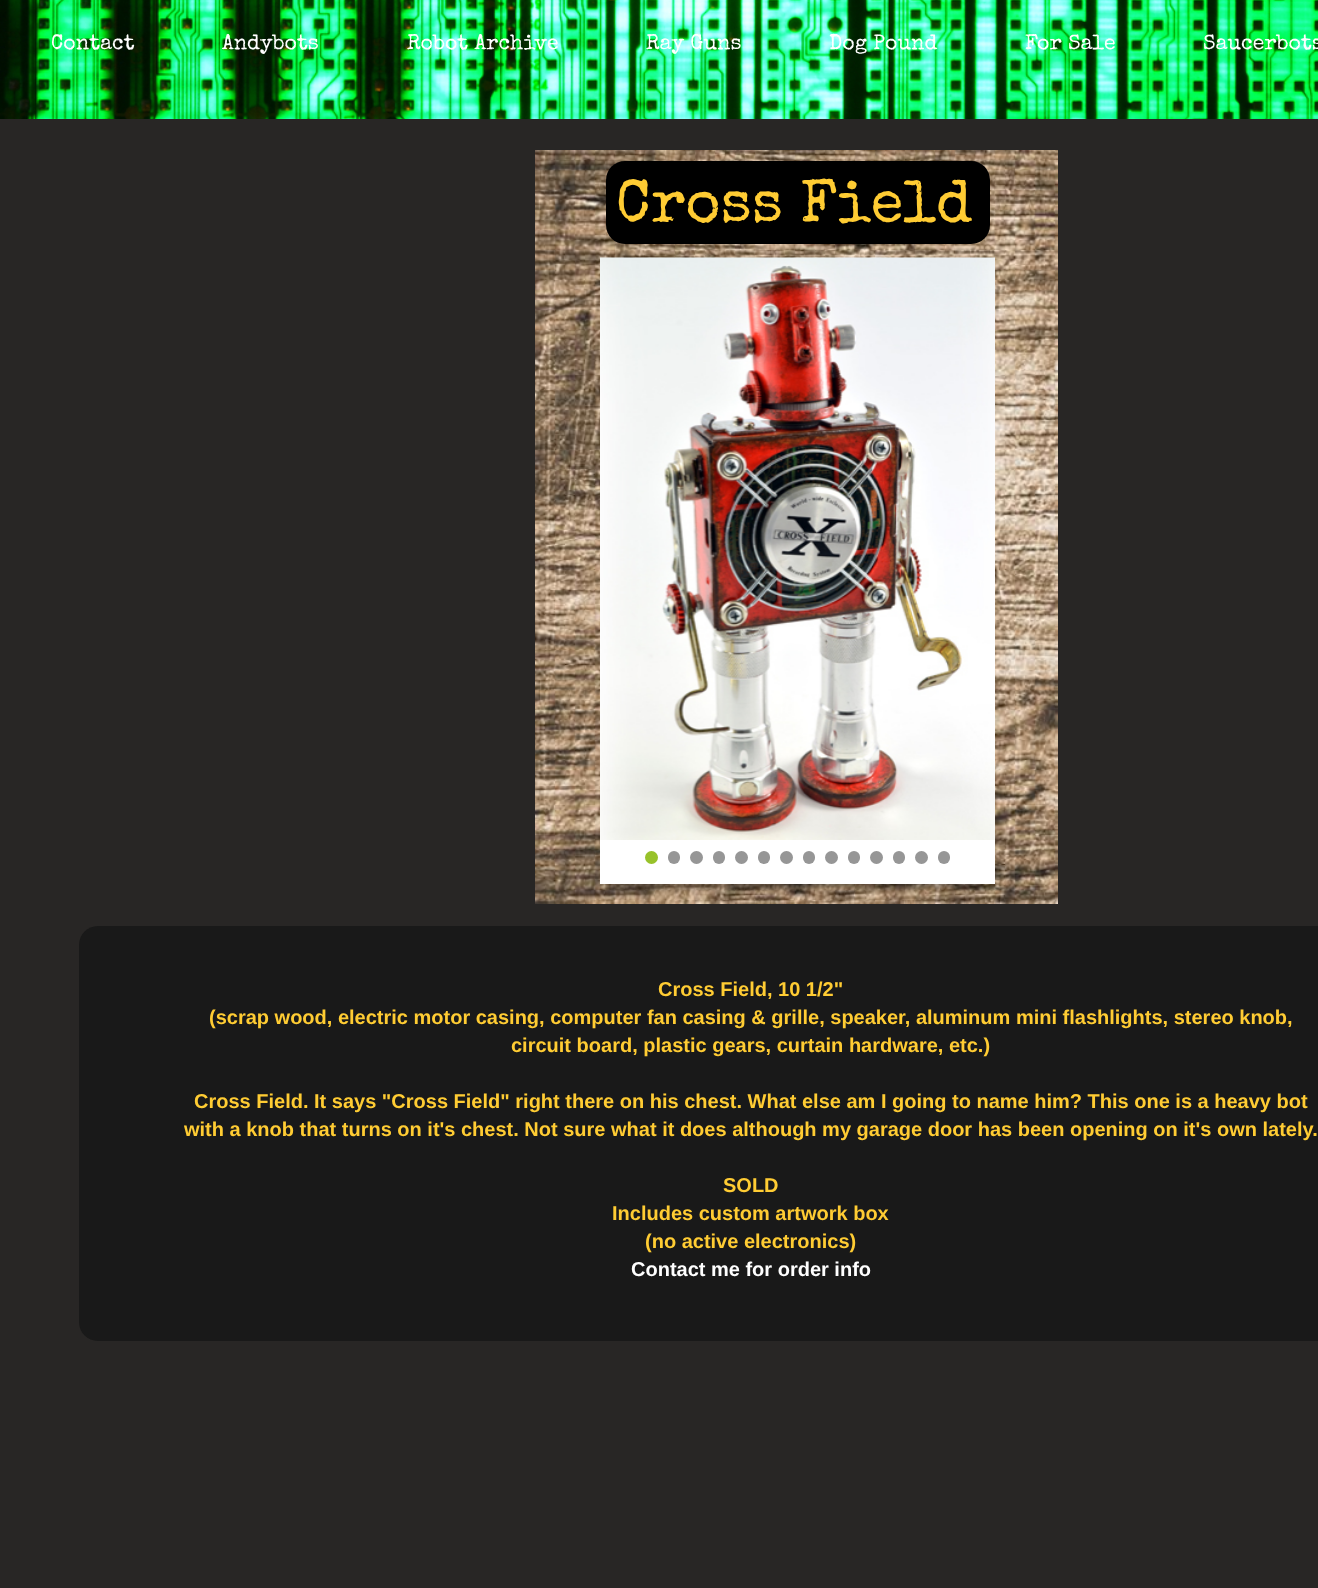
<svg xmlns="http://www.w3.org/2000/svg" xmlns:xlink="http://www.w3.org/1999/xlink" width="1318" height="1588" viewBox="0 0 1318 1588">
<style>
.cls-1{font:21.25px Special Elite;fill:#ffffff}
.cls-2{font:60px Special Elite;fill:#ffcc33}
.cls-3{font:bold 20px Liberation Sans;fill:#ffcc33}
.cls-4{font:bold 20px Liberation Sans;fill:#ffffff}
</style>
<rect width="100%" height="100%" fill="#ffffff"/>
<image xlink:href="image0.png" x="0" y="0" width="1318" height="119"/>
<rect fill="#282625" x="0" y="119" width="1318" height="1469"/>
<image xlink:href="image1.png" x="535" y="150" width="523" height="754"/>
<rect fill="#000000" x="606" y="161" width="384" height="83" rx="19"/>
<rect fill="#000000" fill-opacity="0.7" filter="blur(6.5px)" x="613" y="759" width="197" height="125"/>
<rect fill="#000000" fill-opacity="0.7" filter="blur(6.5px)" x="785" y="759" width="198" height="125"/>
<rect fill="#ffffff" x="600" y="840" width="395" height="44"/>
<image xlink:href="image2.png" x="600" y="257" width="395" height="583"/>
<circle fill="#98c22a" cx="651.5" cy="857.5" r="6.5"/>
<rect fill="#969696" x="668" y="851" width="12" height="13" rx="6"/>
<circle fill="#969696" cx="696.5" cy="857.5" r="6.5"/>
<rect fill="#969696" x="713" y="851" width="12" height="13" rx="6"/>
<circle fill="#969696" cx="741.5" cy="857.5" r="6.5"/>
<rect fill="#969696" x="758" y="851" width="12" height="13" rx="6"/>
<circle fill="#969696" cx="786.5" cy="857.5" r="6.5"/>
<rect fill="#969696" x="803" y="851" width="12" height="13" rx="6"/>
<circle fill="#969696" cx="831.5" cy="857.5" r="6.5"/>
<rect fill="#969696" x="848" y="851" width="12" height="13" rx="6"/>
<circle fill="#969696" cx="876.5" cy="857.5" r="6.5"/>
<rect fill="#969696" x="893" y="851" width="12" height="13" rx="6"/>
<circle fill="#969696" cx="921.5" cy="857.5" r="6.5"/>
<rect fill="#969696" x="938" y="851" width="12" height="13" rx="6"/>
<path fill="#191919" d="M98 926H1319V1341H98C87.5 1341 79 1332.5 79 1322V945C79 934.5 87.5 926 98 926Z"/>
<text class="cls-1" x="51" y="49">Contact</text>
<text class="cls-1" x="222" y="49">Andybots</text>
<text class="cls-1" x="407" y="49">Robot Archive</text>
<text class="cls-1" x="646" y="49">Ray Guns</text>
<text class="cls-1" x="829" y="49">Dog Pound</text>
<text class="cls-1" x="1025" y="49">For Sale</text>
<text class="cls-1" x="1203" y="49">Saucerbots</text>
<text class="cls-2" x="616" y="221">Cross Field</text>
<text class="cls-3" x="658" y="996">Cross Field, 10 1/2"</text>
<text class="cls-3" x="209" y="1024">(scrap wood, electric motor casing, computer fan casing &amp; grille, speaker, aluminum mini flashlights, stereo knob,</text>
<text class="cls-3" x="511" y="1052">circuit board, plastic gears, curtain hardware, etc.)</text>
<text class="cls-3" x="194" y="1108">Cross Field. It says "Cross Field" right there on his chest. What else am I going to name him? This one is a heavy bot</text>
<text class="cls-3" x="184" y="1136">with a knob that turns on it's chest. Not sure what it does although my garage door has been opening on it's own lately.</text>
<text class="cls-3" x="723" y="1192">SOLD</text>
<text class="cls-3" x="612" y="1220">Includes custom artwork box</text>
<text class="cls-3" x="645" y="1248">(no active electronics)</text>
<text class="cls-4" x="631" y="1276">Contact me for order info</text>
</svg>
